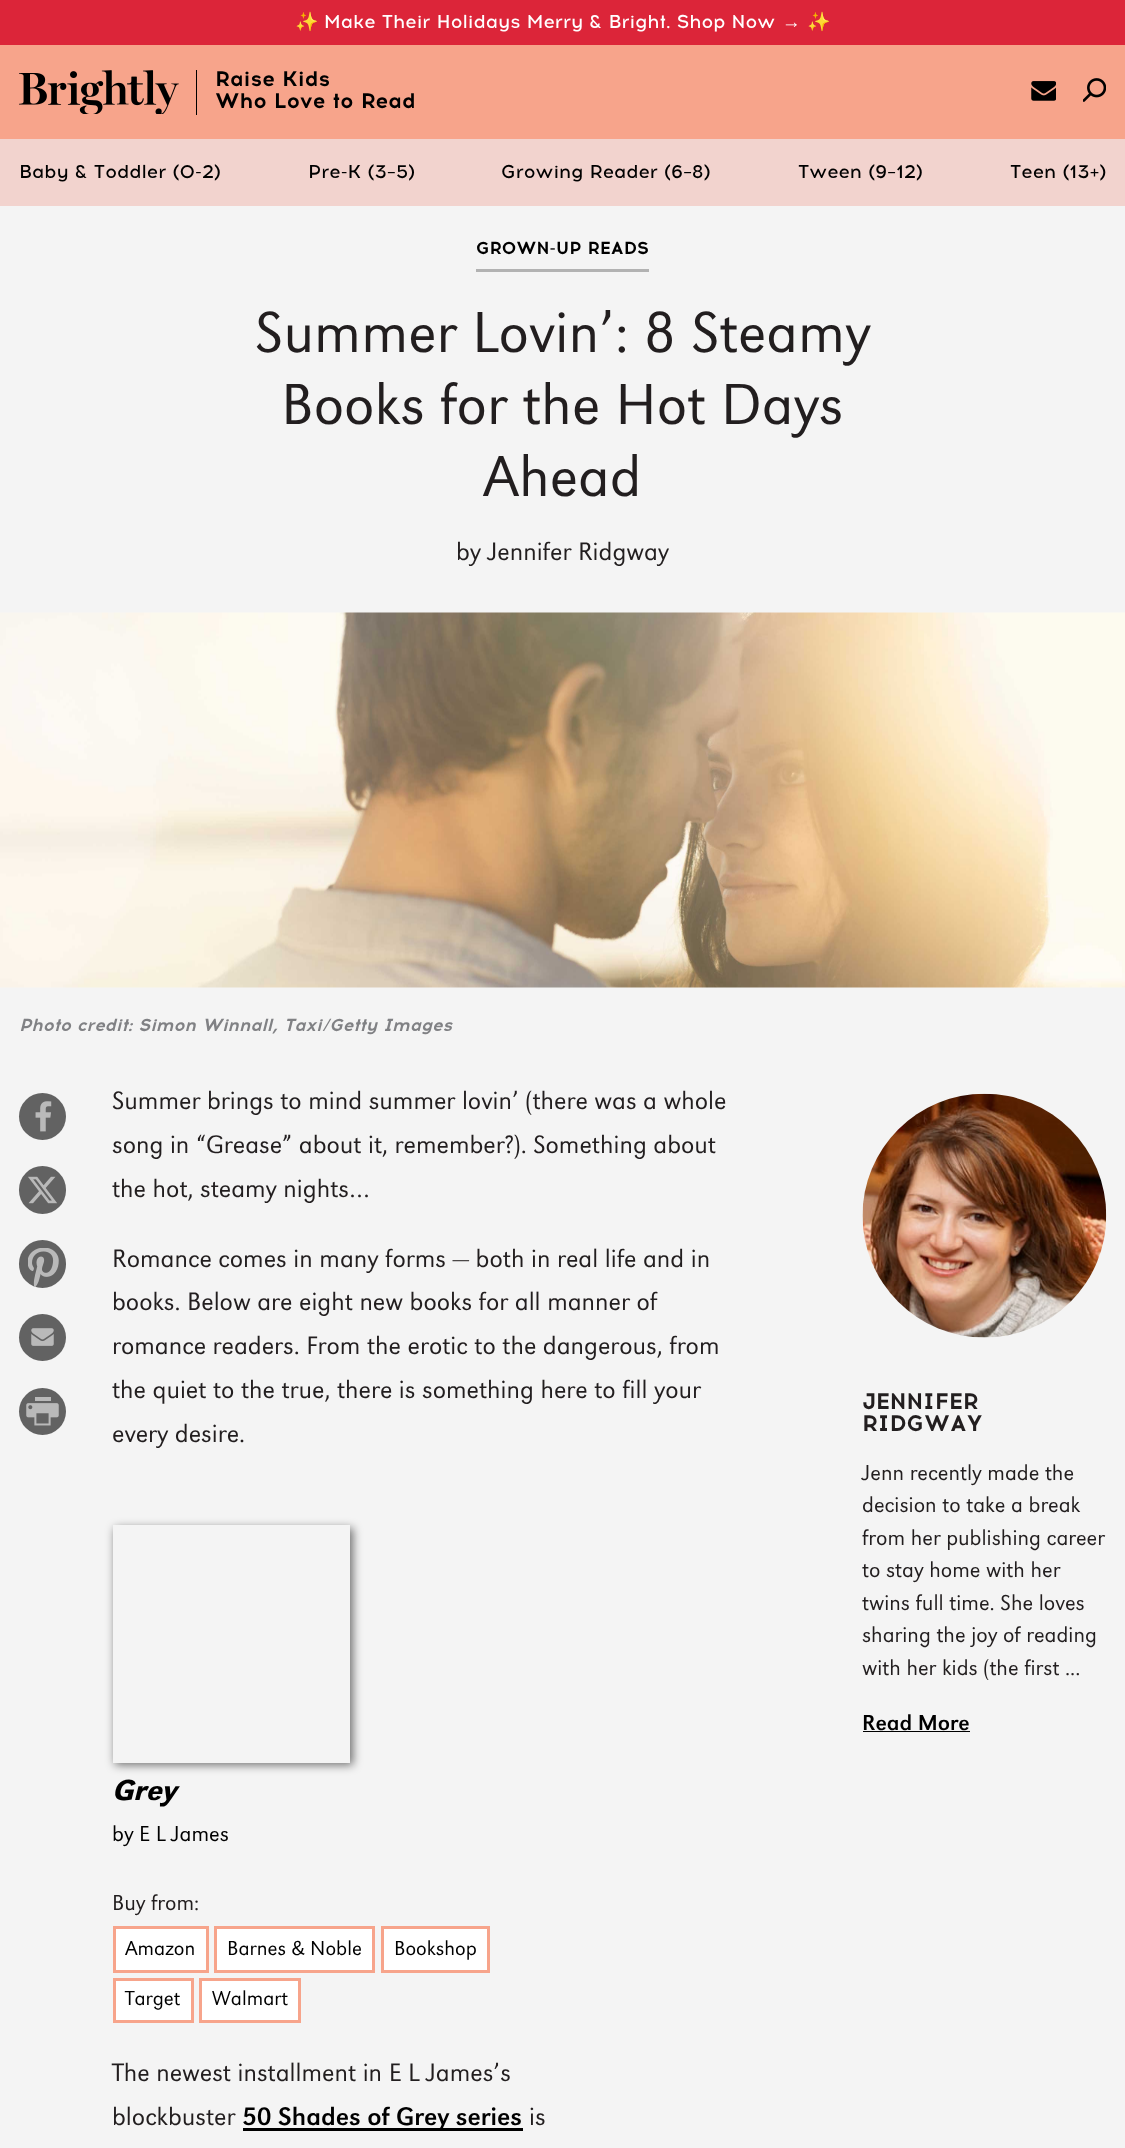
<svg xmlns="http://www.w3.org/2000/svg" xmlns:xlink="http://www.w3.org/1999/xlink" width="1125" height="2148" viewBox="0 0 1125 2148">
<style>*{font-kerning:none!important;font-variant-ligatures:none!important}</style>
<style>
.cls-1{font:18.75px Noto Color Emoji;fill:#ffffff}
.cls-2{font:18.75px 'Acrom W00';fill:#ffffff}
.cls-3{font:18.75px Liberation Sans;fill:#ffffff}
.cls-4{font:21.25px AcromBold;fill:#000000}
.cls-5{font:18.75px 'Acrom W00';fill:#000000}
.cls-6{font:17.5px AcromBold;fill:#000000}
.cls-7{font:300 60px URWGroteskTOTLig;fill:#221e1f}
.cls-8{font:300 26.25px URWGroteskTOTLig;fill:#221e1f}
.cls-9{font:italic 17.5px AcromBold;fill:#808184}
.cls-10{font:italic 500 30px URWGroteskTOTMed;fill:#000000}
.cls-11{font:300 22.5px URWGroteskTOTLig;fill:#000000}
.cls-12{font:300 22.5px URWGroteskTOTLig;fill:#221e1f}
.cls-13{font:300 21px URWGroteskTOTLig;fill:#000000}
.cls-14{font:26.25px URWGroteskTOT;fill:#000000}
.cls-15{font:22.5px AcromBold;fill:#221e1f}
.cls-16{font:22.5px URWGroteskTOT;fill:#000000}
</style>
<defs>
<clipPath id="clip1"><path d="M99 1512H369V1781H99ZM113 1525H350V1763H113Z" clip-rule="evenodd"/></clipPath>
</defs>
<rect width="100%" height="100%" fill="#f4f4f4"/>
<rect fill="#f7a48b" x="0" y="45" width="1125" height="94"/>
<rect fill="#dc2539" x="0" y="0" width="1125" height="45"/>
<image xlink:href="image0.png" x="19" y="70" width="160" height="44"/>
<rect fill="#000000" x="196" y="70" width="1" height="45"/>
<image xlink:href="image1.png" x="1031" y="81" width="25" height="20"/>
<image xlink:href="image2.png" x="1083" y="78" width="23" height="24"/>
<rect fill="#f2d3ce" x="0" y="139" width="1125" height="67"/>
<rect fill="#b2b2b2" x="476" y="269" width="173" height="3"/>
<image xlink:href="image3.png" x="0" y="612" width="1125" height="376"/>
<circle fill="#626262" cx="42.5" cy="1116.5" r="23.5"/>
<image xlink:href="image4.png" x="35" y="1101" width="17" height="31"/>
<rect fill="#626262" x="19" y="1166" width="47" height="48" rx="23.5"/>
<image xlink:href="image5.png" x="28" y="1176" width="29" height="28"/>
<rect fill="#626262" x="19" y="1240" width="47" height="48" rx="23.5"/>
<image xlink:href="image6.png" x="28" y="1248" width="31" height="39"/>
<circle fill="#626262" cx="42.5" cy="1337.5" r="23.5"/>
<image xlink:href="image7.png" x="31" y="1328" width="23" height="18"/>
<circle fill="#626262" cx="42.5" cy="1411.5" r="23.5"/>
<image xlink:href="image8.png" x="26" y="1397" width="33" height="29"/>
<g clip-path="url(#clip1)">
<rect fill="#000000" fill-opacity="0.55" filter="blur(5px)" x="115" y="1528" width="238" height="237"/>
</g>
<rect fill="#ffffff" stroke="#f7a48b" stroke-width="3" x="114.5" y="1927.5" width="93" height="44"/>
<rect fill="#ffffff" stroke="#f7a48b" stroke-width="3" x="215.5" y="1927.5" width="158" height="44"/>
<rect fill="#ffffff" stroke="#f7a48b" stroke-width="3" x="382.5" y="1927.5" width="106" height="44"/>
<rect fill="#ffffff" stroke="#f7a48b" stroke-width="3" x="114.5" y="1979.5" width="78" height="42"/>
<rect fill="#ffffff" stroke="#f7a48b" stroke-width="3" x="200.5" y="1979.5" width="99" height="42"/>
<rect fill="#000000" x="243" y="2128" width="280" height="3"/>
<image xlink:href="image9.png" x="862" y="1093" width="245" height="245"/>
<rect fill="#000000" x="863" y="1731" width="107" height="1"/>
<text class="cls-1" x="295" y="28">✨</text>
<text class="cls-2" x="324" y="28">Make Their Holidays Merry &amp; Bright. Shop Now</text>
<text class="cls-3" x="782" y="28">→</text>
<text class="cls-1" x="807" y="28">✨</text>
<text class="cls-4"><tspan x="215" y="86">Raise Kids</tspan><tspan x="215" y="108">Who Love to Read</tspan></text>
<text class="cls-5" x="19" y="178">Baby &amp; Toddler (0-2)</text>
<text class="cls-5" x="308" y="178">Pre-K (3–5)</text>
<text class="cls-5" x="501" y="178">Growing Reader (6–8)</text>
<text class="cls-5" x="798" y="178">Tween (9–12)</text>
<text class="cls-5" x="1010" y="178">Teen (13+)</text>
<text class="cls-6" x="476" y="254">GROWN-UP READS</text>
<text class="cls-7" x="255" y="352">Summer Lovin’: 8 Steamy</text>
<text class="cls-7" x="281" y="424">Books for the Hot Days</text>
<text class="cls-7" x="483" y="496">Ahead</text>
<text class="cls-8" x="456" y="560">by Jennifer Ridgway</text>
<text class="cls-9" x="19" y="1031">Photo credit: Simon Winnall, Taxi/Getty Images</text>
<text class="cls-8"><tspan x="112" y="1109">Summer brings to mind summer lovin’ (there was a whole</tspan><tspan x="112" y="1153">song in “Grease” about it, remember?). Something about</tspan><tspan x="112" y="1197">the hot, steamy nights…</tspan></text>
<text class="cls-8"><tspan x="112" y="1267">Romance comes in many forms — both in real life and in</tspan><tspan x="112" y="1310">books. Below are eight new books for all manner of</tspan><tspan x="112" y="1354">romance readers. From the erotic to the dangerous, from</tspan><tspan x="112" y="1398">the quiet to the true, there is something here to fill your</tspan><tspan x="112" y="1442">every desire.</tspan></text>
<text class="cls-10" x="112" y="1800">Grey</text>
<text class="cls-11" x="112" y="1841">by E L James</text>
<text class="cls-12" x="112" y="1910">Buy from:</text>
<text class="cls-13" x="125" y="1955">Amazon</text>
<text class="cls-13" x="227" y="1955">Barnes &amp; Noble</text>
<text class="cls-13" x="394" y="1955">Bookshop</text>
<text class="cls-13" x="125" y="2005">Target</text>
<text class="cls-13" x="212" y="2005">Walmart</text>
<text class="cls-8"><tspan x="112" y="2081">The newest installment in E L James’s</tspan><tspan x="112" y="2125">blockbuster</tspan></text>
<text class="cls-14" x="242" y="2125">50 Shades of Grey series</text>
<text class="cls-8" x="529" y="2125">is</text>
<text class="cls-15"><tspan x="862" y="1409">JENNIFER</tspan><tspan x="862" y="1431">RIDGWAY</tspan></text>
<text class="cls-12"><tspan x="862" y="1480">Jenn recently made the</tspan><tspan x="862" y="1512">decision to take a break</tspan><tspan x="862" y="1545">from her publishing career</tspan><tspan x="862" y="1577">to stay home with her</tspan><tspan x="862" y="1610">twins full time. She loves</tspan><tspan x="862" y="1642">sharing the joy of reading</tspan><tspan x="862" y="1675">with her kids (the first ...</tspan></text>
<text class="cls-16" x="862" y="1730">Read More</text>
</svg>
